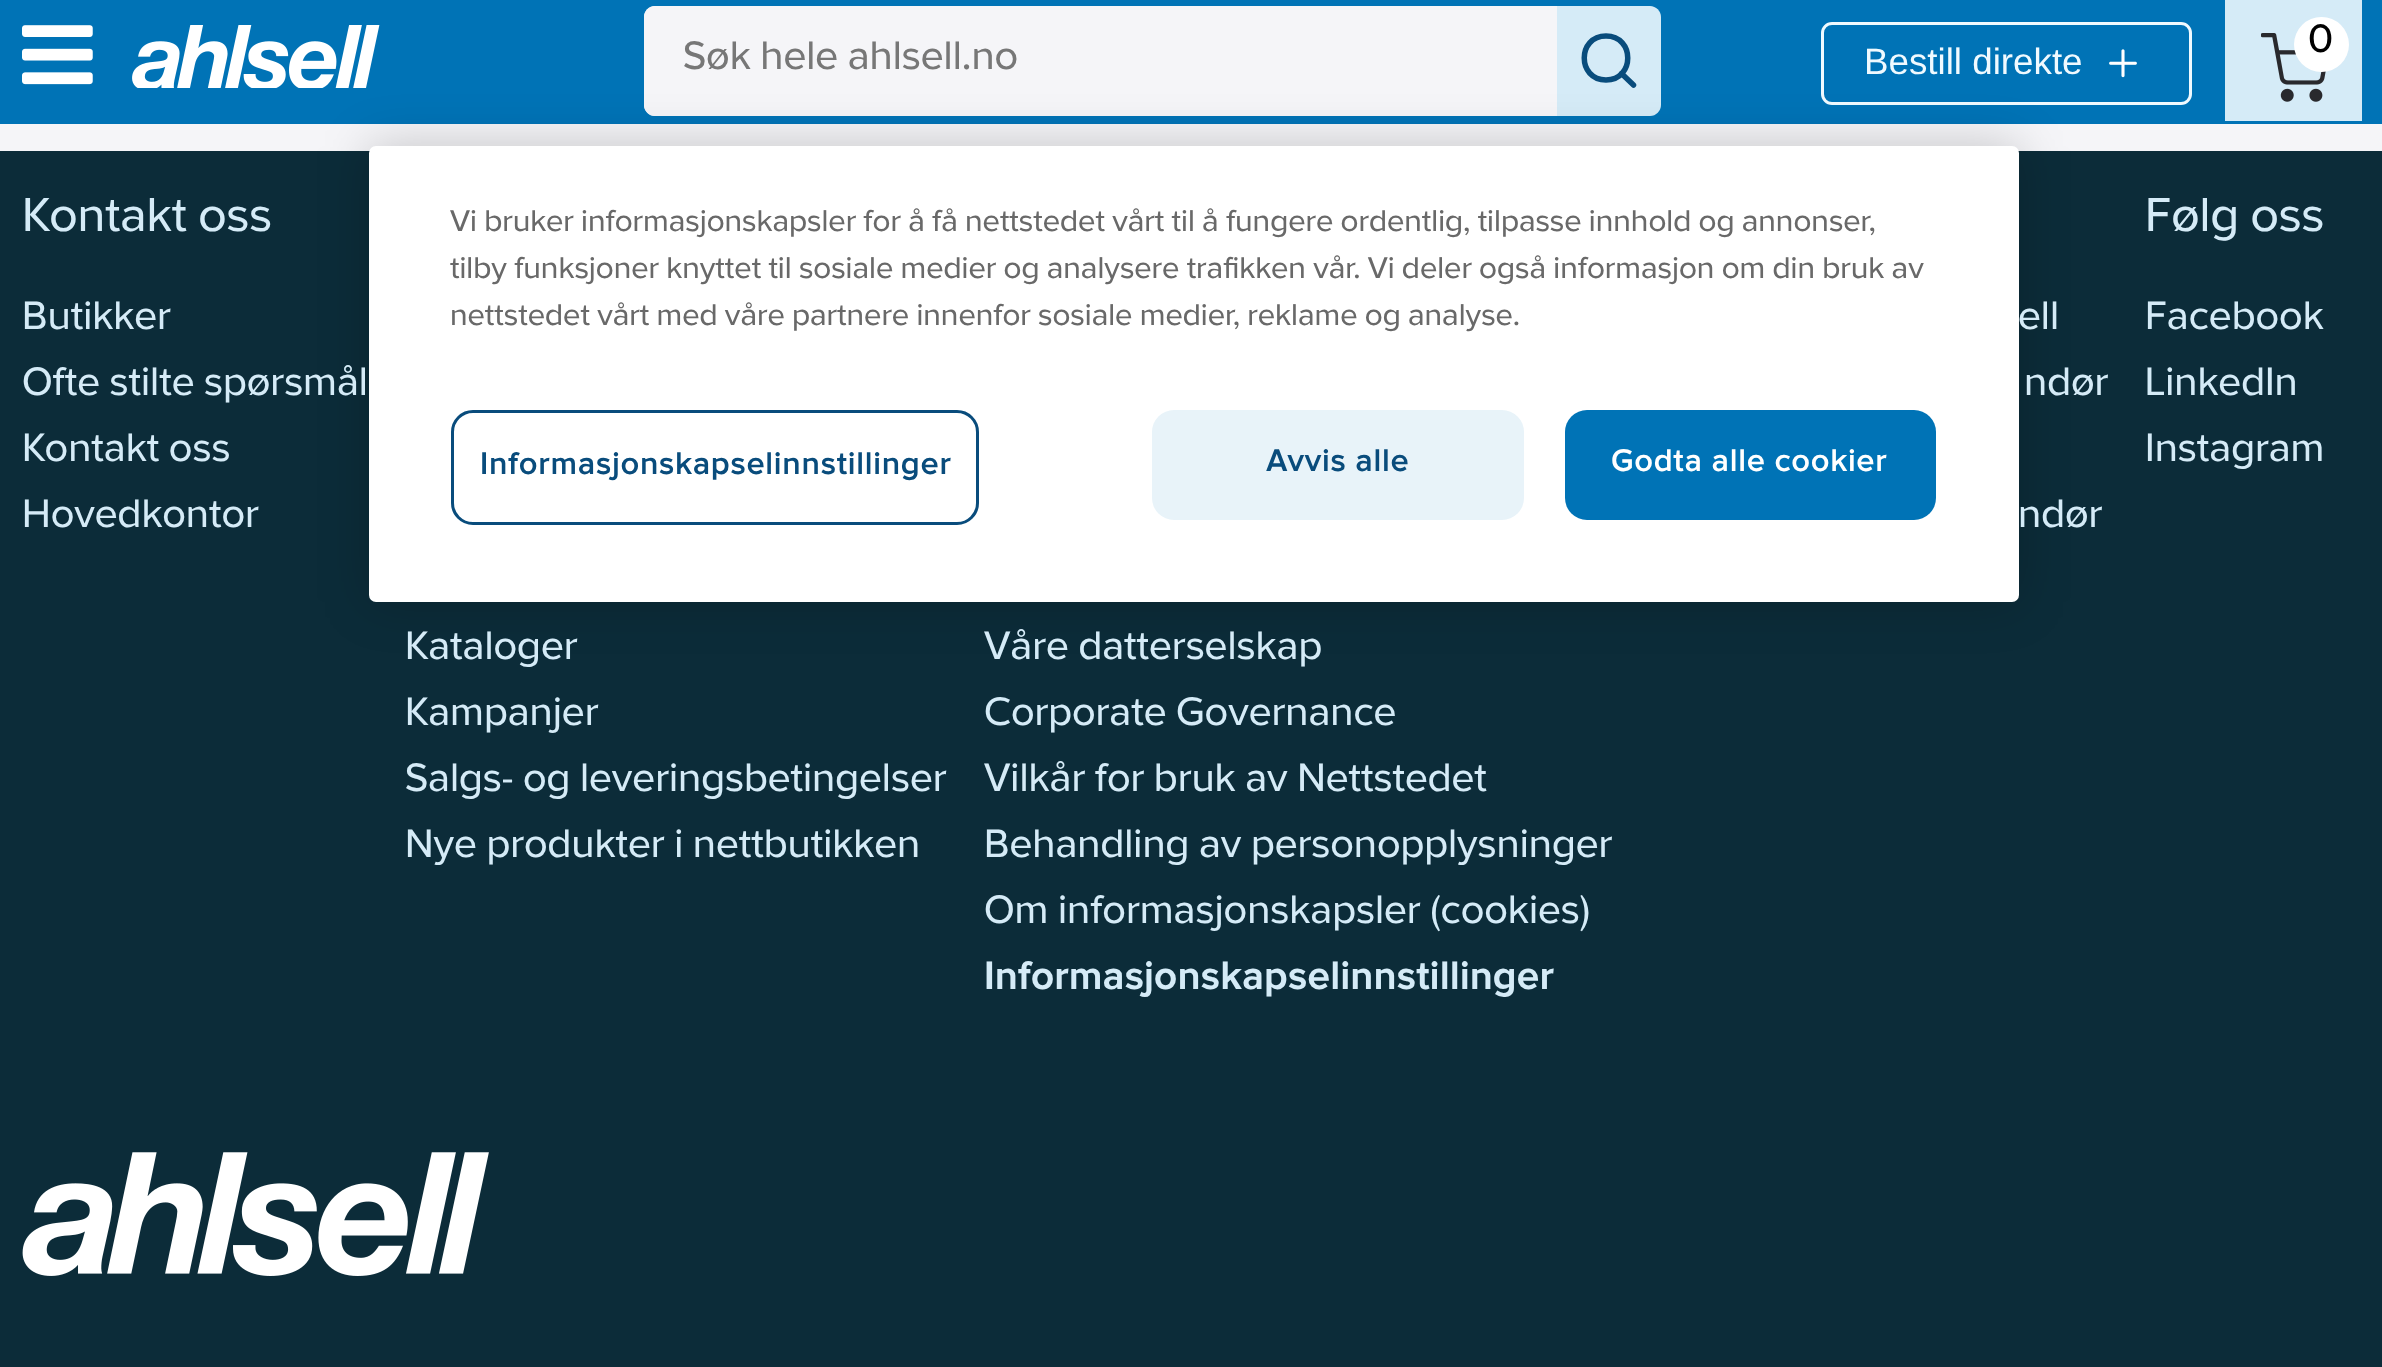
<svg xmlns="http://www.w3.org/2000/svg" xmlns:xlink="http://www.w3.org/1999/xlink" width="2382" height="1367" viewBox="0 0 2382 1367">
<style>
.cls-1{font:41.25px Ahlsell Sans;fill:#777777}
.cls-2{font:36.75px Liberation Sans;fill:#f0faff}
.cls-3{font:41.25px Ahlsell Sans;fill:#000000}
.cls-4{font:49.5px Ahlsell Sans;fill:#d5ebf7}
.cls-5{font:41.25px Ahlsell Sans;fill:#d5ebf7}
.cls-6{font:bold 41.25px Ahlsell Sans;fill:#d5ebf7}
.cls-7{font:31.3px Ahlsell Sans;fill:#696969}
.cls-8{font:bold 31.3px 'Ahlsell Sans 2';letter-spacing:1.6px;fill:#094c7c}
.cls-9{font:bold 31.3px 'Ahlsell Sans 2';letter-spacing:1.6px;fill:#ffffff}
</style>
<rect width="100%" height="100%" fill="#f5f5f8"/>
<rect fill="#0073b6" x="0" y="0" width="2382" height="124"/>
<image xlink:href="image0.png" x="132" y="25" width="248" height="63"/>
<path fill="#f5f5f8" d="M655 6H1557V116H655C649 116 644 111 644 105V17C644 11 649 6 655 6Z"/>
<rect fill="#f5f5f8" x="644" y="6" width="913" height="110" rx="11"/>
<path fill="#d5ebf7" d="M1557 6H1650C1656 6 1661 11 1661 17V105C1661 111 1656 116 1650 116H1557Z"/>
<path fill="none" stroke="#094c7c" stroke-width="5.5" stroke-linecap="round" stroke-linejoin="round" d="M1606 80C1635 80 1635 36 1606 36C1577 36 1577 80 1606 80ZM1633.5 85L1621.5 73.5"/>
<image xlink:href="image1.png" x="22" y="25" width="71" height="60"/>
<rect fill="none" stroke="#f0faff" stroke-width="3" x="1822.5" y="23.5" width="368" height="80" rx="9.5"/>
<image xlink:href="image2.png" x="2109" y="49" width="28" height="29"/>
<rect fill="#d5ebf7" x="2225" y="0" width="137" height="121"/>
<image xlink:href="image3.png" x="2261" y="33" width="65" height="69"/>
<circle fill="#ffffff" cx="2321.5" cy="44.5" r="27.5"/>
<rect fill="#0c2c39" x="0" y="151" width="2382" height="1216"/>
<image xlink:href="image4.png" x="22" y="1152" width="467" height="124"/>
<rect fill="#000000" fill-opacity="0.2" filter="blur(25px)" x="369" y="146" width="1650" height="456" rx="7"/>
<rect fill="#ffffff" x="369" y="146" width="1650" height="456" rx="7"/>
<rect fill="none" stroke="#094c7c" stroke-width="3" x="452.5" y="411.5" width="525" height="112" rx="20.5"/>
<rect fill="#e8f3f9" x="1152" y="410" width="372" height="110" rx="22"/>
<rect fill="#0073b6" x="1565" y="410" width="371" height="110" rx="22"/>
<text class="cls-1" x="683" y="69">Søk hele ahlsell.no</text>
<text class="cls-2" x="1864" y="74">Bestill direkte</text>
<text class="cls-3" x="2308" y="52">0</text>
<text class="cls-4" x="22" y="231">Kontakt oss</text>
<text class="cls-5"><tspan x="22" y="329">Butikker</tspan><tspan x="22" y="395">Ofte stilte spørsmål</tspan><tspan x="22" y="461">Kontakt oss</tspan><tspan x="22" y="527">Hovedkontor</tspan></text>
<text class="cls-5" x="2018" y="329">ell</text>
<text class="cls-5" x="2024" y="395">ndør</text>
<text class="cls-5" x="2018" y="527">ndør</text>
<text class="cls-4" x="2145" y="231">Følg oss</text>
<text class="cls-5"><tspan x="2145" y="329">Facebook</tspan><tspan x="2145" y="395">LinkedIn</tspan><tspan x="2145" y="461">Instagram</tspan></text>
<text class="cls-5"><tspan x="405" y="659">Kataloger</tspan><tspan x="405" y="725">Kampanjer</tspan><tspan x="405" y="791">Salgs- og leveringsbetingelser</tspan><tspan x="405" y="857">Nye produkter i nettbutikken</tspan></text>
<text class="cls-5"><tspan x="984" y="659">Våre datterselskap</tspan><tspan x="984" y="725">Corporate Governance</tspan><tspan x="984" y="791">Vilkår for bruk av Nettstedet</tspan><tspan x="984" y="857">Behandling av personopplysninger</tspan><tspan x="984" y="923">Om informasjonskapsler (cookies)</tspan></text>
<text class="cls-6" x="984" y="989">Informasjonskapselinnstillinger</text>
<text class="cls-7"><tspan x="450" y="231">Vi bruker informasjonskapsler for å få nettstedet vårt til å fungere ordentlig, tilpasse innhold og annonser,</tspan><tspan x="450" y="278">tilby funksjoner knyttet til sosiale medier og analysere trafikken vår. Vi deler også informasjon om din bruk av</tspan><tspan x="450" y="325">nettstedet vårt med våre partnere innenfor sosiale medier, reklame og analyse.</tspan></text>
<text class="cls-8" x="480" y="474">Informasjonskapselinnstillinger</text>
<text class="cls-8" x="1266" y="471">Avvis alle</text>
<text class="cls-9" x="1611" y="471">Godta alle cookier</text>
</svg>
